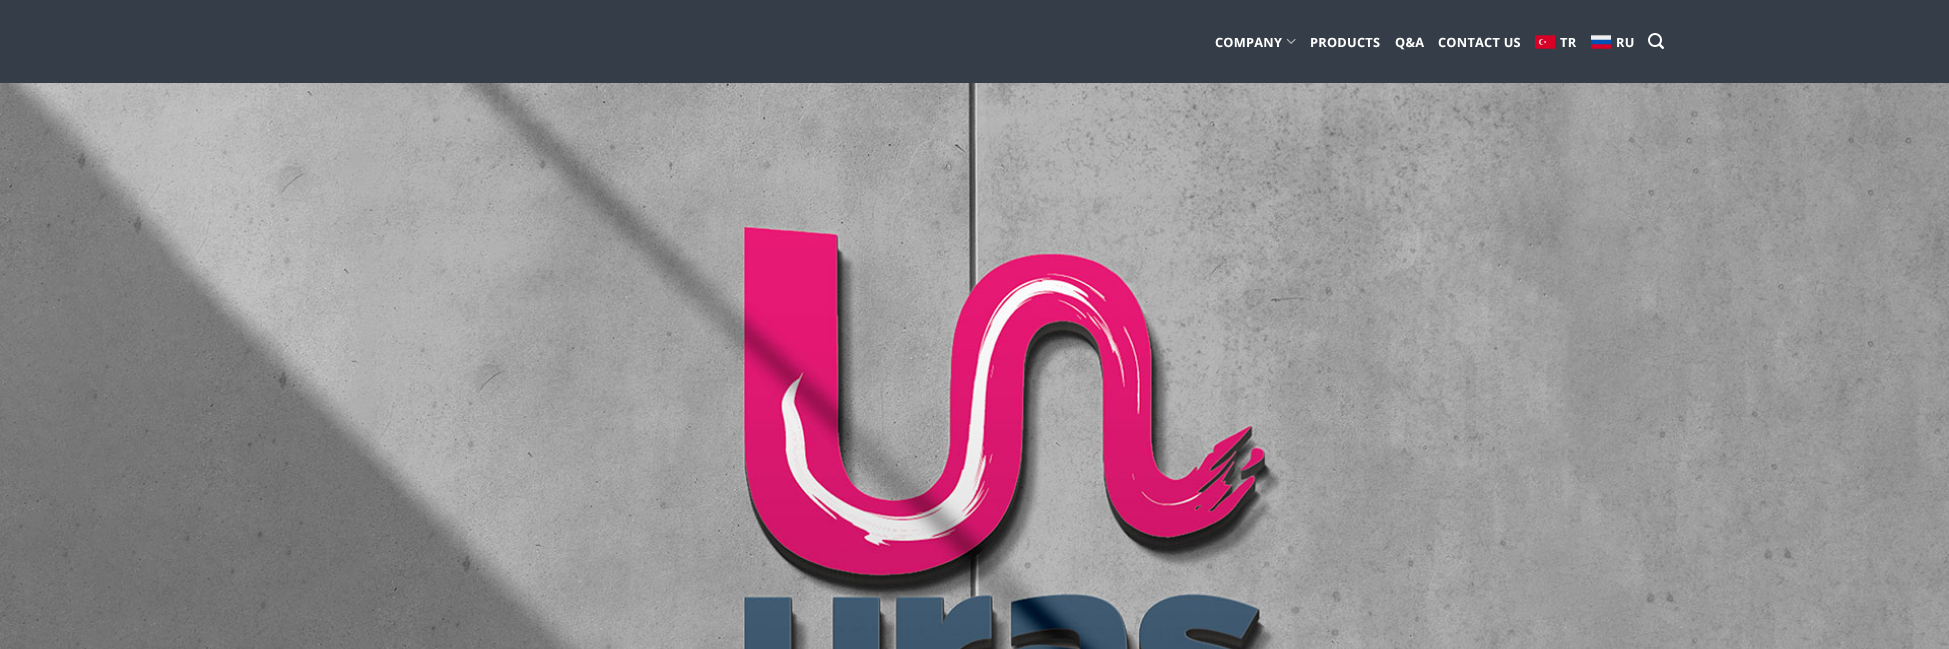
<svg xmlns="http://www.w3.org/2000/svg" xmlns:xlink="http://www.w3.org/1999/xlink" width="1949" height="649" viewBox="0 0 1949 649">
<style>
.cls-1{font:bold 12.75px Open Sans;letter-spacing:0.25px;fill:#ffffff}
</style>
<rect width="100%" height="100%" fill="#ffffff"/>
<rect fill="#353e48" x="0" y="0" width="1949" height="83"/>
<image xlink:href="image0.png" x="1286" y="38" width="10" height="6"/>
<image xlink:href="image1.png" x="1535" y="35" width="20" height="14"/>
<image xlink:href="image2.png" x="1591" y="35" width="20" height="14"/>
<image xlink:href="image3.png" x="1648" y="33" width="16" height="16"/>
<image xlink:href="image4.png" x="0" y="83" width="1949" height="566"/>
<text class="cls-1" x="1215" y="47">COMPANY</text>
<text class="cls-1" x="1310" y="47">PRODUCTS</text>
<text class="cls-1" x="1395" y="47">Q&amp;A</text>
<text class="cls-1" x="1438" y="47">CONTACT US</text>
<text class="cls-1" x="1560" y="47">TR</text>
<text class="cls-1" x="1616" y="47">RU</text>
</svg>
